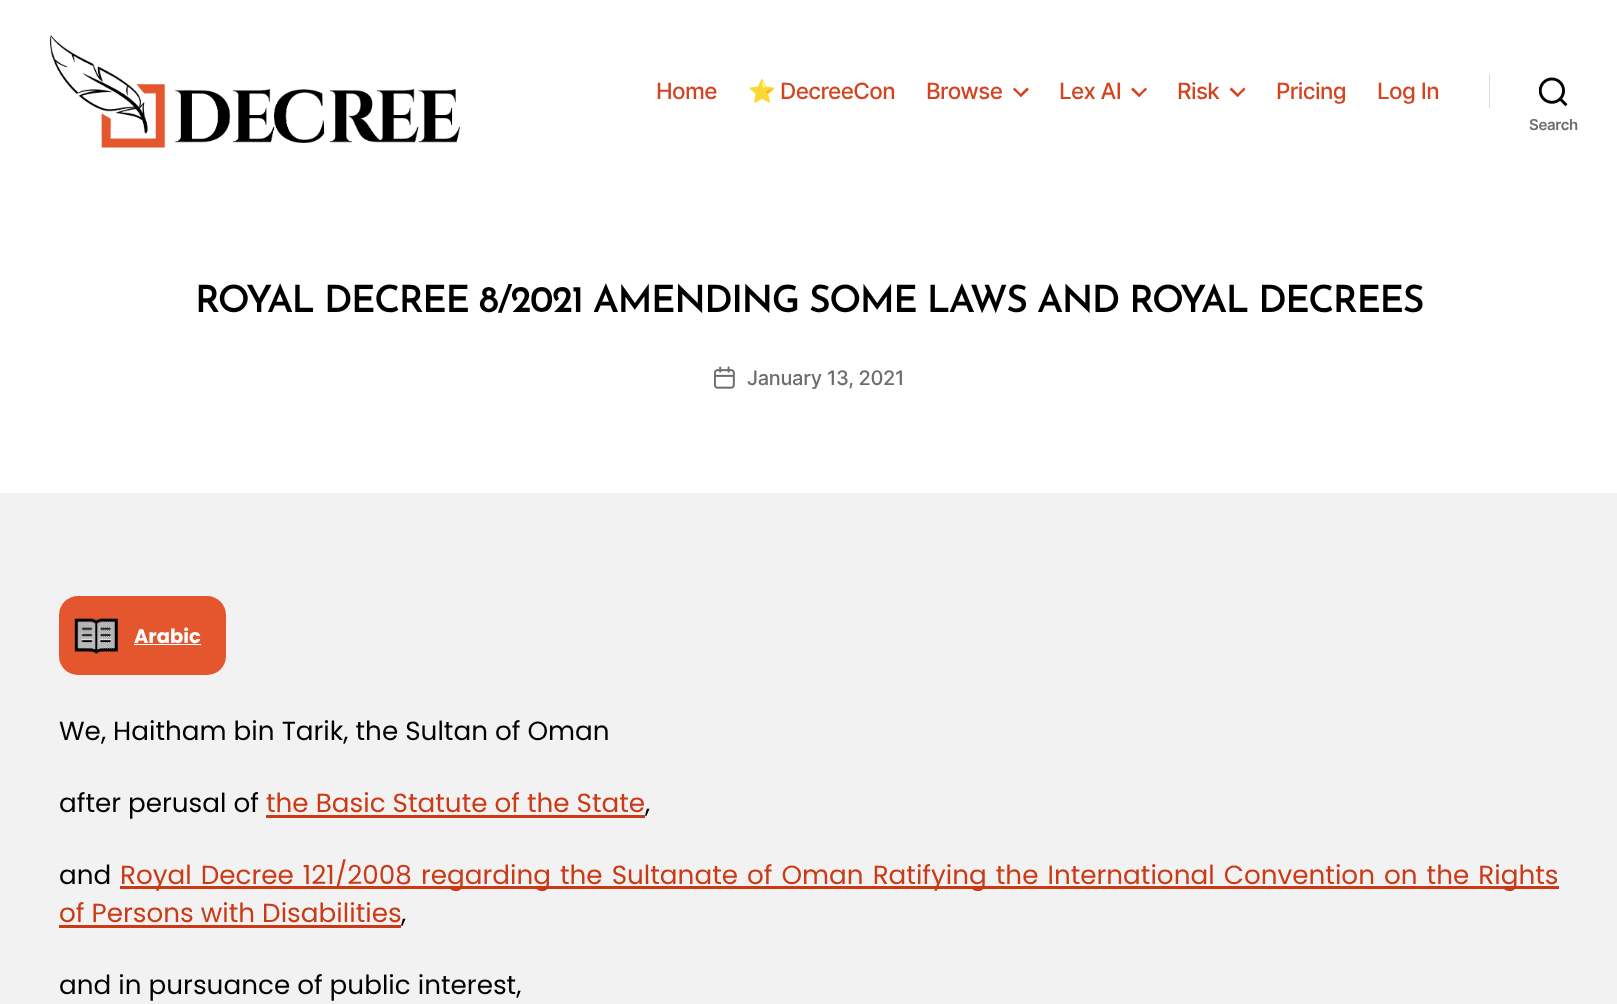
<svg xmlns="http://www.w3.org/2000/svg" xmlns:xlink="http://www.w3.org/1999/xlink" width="1617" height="1004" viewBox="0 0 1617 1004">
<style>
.cls-1{font:500 22.5px Inter;letter-spacing:-0.6px;fill:#d34421}
.cls-2{font:22.5px Noto Color Emoji;letter-spacing:-0.6px;fill:#d34421}
.cls-3{font:600 15px Inter;letter-spacing:-0.3px;fill:#6d6d6d}
.cls-4{font:100 37.5px Josefin Sans;letter-spacing:-1.55px;fill:#000000}
.cls-5{font:500 20px Inter;letter-spacing:-0.3px;fill:#6d6d6d}
.cls-6{font:bold 19.5px Poppins;fill:#ffffff}
.cls-7{font:26.25px Poppins;fill:#000000}
.cls-8{font:26.25px Poppins;fill:#cb3915}
</style>
<rect width="100%" height="100%" fill="#f2f2f2"/>
<rect fill="#ffffff" x="0" y="0" width="1617" height="493"/>
<image xlink:href="image0.png" x="50" y="35" width="410" height="113"/>
<path fill="#d34421" d="M1013 89.5L1014.5 87.5L1022.5 95.5L1021 97Z"/>
<path fill="#d34421" d="M1019 95.5L1027 87.5L1029 89.5L1021 97Z"/>
<path fill="#d34421" d="M1131 89.5L1133 87.5L1141 95.5L1139 97Z"/>
<path fill="#d34421" d="M1137.5 95.5L1145.5 87.5L1147 89.5L1139 97Z"/>
<path fill="#d34421" d="M1229.5 89.5L1231.5 87.5L1239.5 95.5L1237.5 97Z"/>
<path fill="#d34421" d="M1236 95.5L1244 87.5L1245.5 89.5L1237.5 97Z"/>
<rect fill="#dbdbdb" x="1489" y="74" width="1" height="34"/>
<image xlink:href="image1.png" x="1539" y="77" width="29" height="30"/>
<image xlink:href="image2.png" x="714" y="366" width="21" height="23"/>
<rect fill="#e4572e" x="59" y="596" width="167" height="79" rx="19"/>
<image xlink:href="image3.png" x="74" y="618" width="45" height="36"/>
<rect fill="#ffffff" x="134" y="644" width="67" height="1"/>
<rect fill="#cb3915" x="266" y="815" width="379" height="3"/>
<rect fill="#cb3915" x="120" y="886" width="1439" height="3"/>
<rect fill="#cb3915" x="59" y="925" width="342" height="3"/>
<text class="cls-1" x="656" y="99">Home</text>
<text class="cls-2" x="748" y="99">⭐️</text>
<text class="cls-1" x="780" y="99">DecreeCon</text>
<text class="cls-1" x="926" y="99">Browse</text>
<text class="cls-1" x="1059" y="99">Lex AI</text>
<text class="cls-1" x="1177" y="99">Risk</text>
<text class="cls-1" x="1276" y="99">Pricing</text>
<text class="cls-1" x="1377" y="99">Log In</text>
<text class="cls-3" x="1529" y="130">Search</text>
<text class="cls-4" x="195" y="312">ROYAL DECREE 8/2021 AMENDING SOME LAWS AND ROYAL DECREES</text>
<text class="cls-5" x="747" y="385">January 13, 2021</text>
<text class="cls-6" x="134" y="643">Arabic</text>
<text class="cls-7" x="59" y="740">We, Haitham bin Tarik, the Sultan of Oman</text>
<text class="cls-7" x="59" y="812">after perusal of</text>
<text class="cls-8" x="266" y="812">the Basic Statute of the State</text>
<text class="cls-7" x="645" y="812">,</text>
<text class="cls-7" x="59" y="884">and</text>
<text class="cls-8" x="120" y="884" word-spacing="2">Royal Decree 121/2008 regarding the Sultanate of Oman Ratifying the International Convention on the Rights</text>
<text class="cls-8" x="59" y="922">of Persons with Disabilities</text>
<text class="cls-7" x="401" y="922">,</text>
<text class="cls-7" x="59" y="994">and in pursuance of public interest,</text>
</svg>
